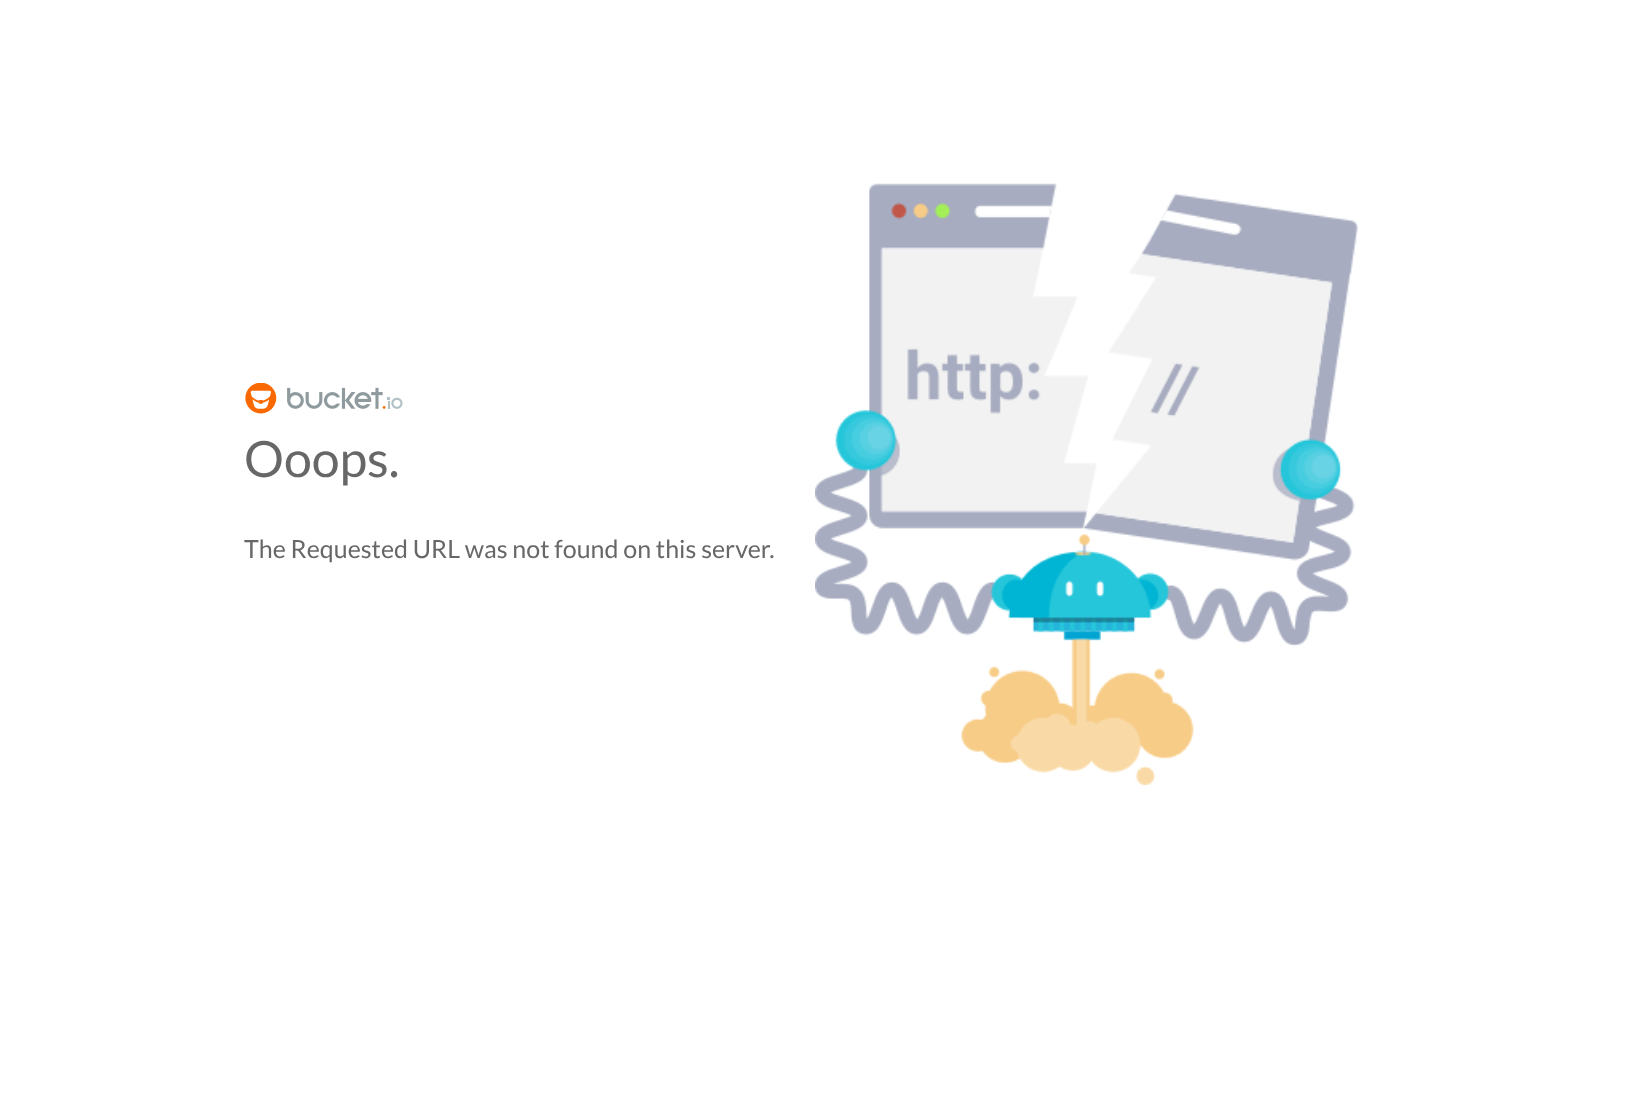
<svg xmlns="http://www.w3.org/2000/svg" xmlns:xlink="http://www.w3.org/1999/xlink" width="1630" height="1110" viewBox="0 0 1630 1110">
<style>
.cls-1{font:50px Lato;fill:#676767}
.cls-2{font:25px Lato;fill:#676767}
</style>
<rect width="100%" height="100%" fill="#ffffff"/>
<image xlink:href="image0.png" x="245" y="383" width="158" height="31"/>
<image xlink:href="image1.png" x="815" y="183" width="543" height="602"/>
<text class="cls-1" x="244" y="477">Ooops.</text>
<text class="cls-2" x="244" y="558">The Requested URL was not found on this server.</text>
</svg>
